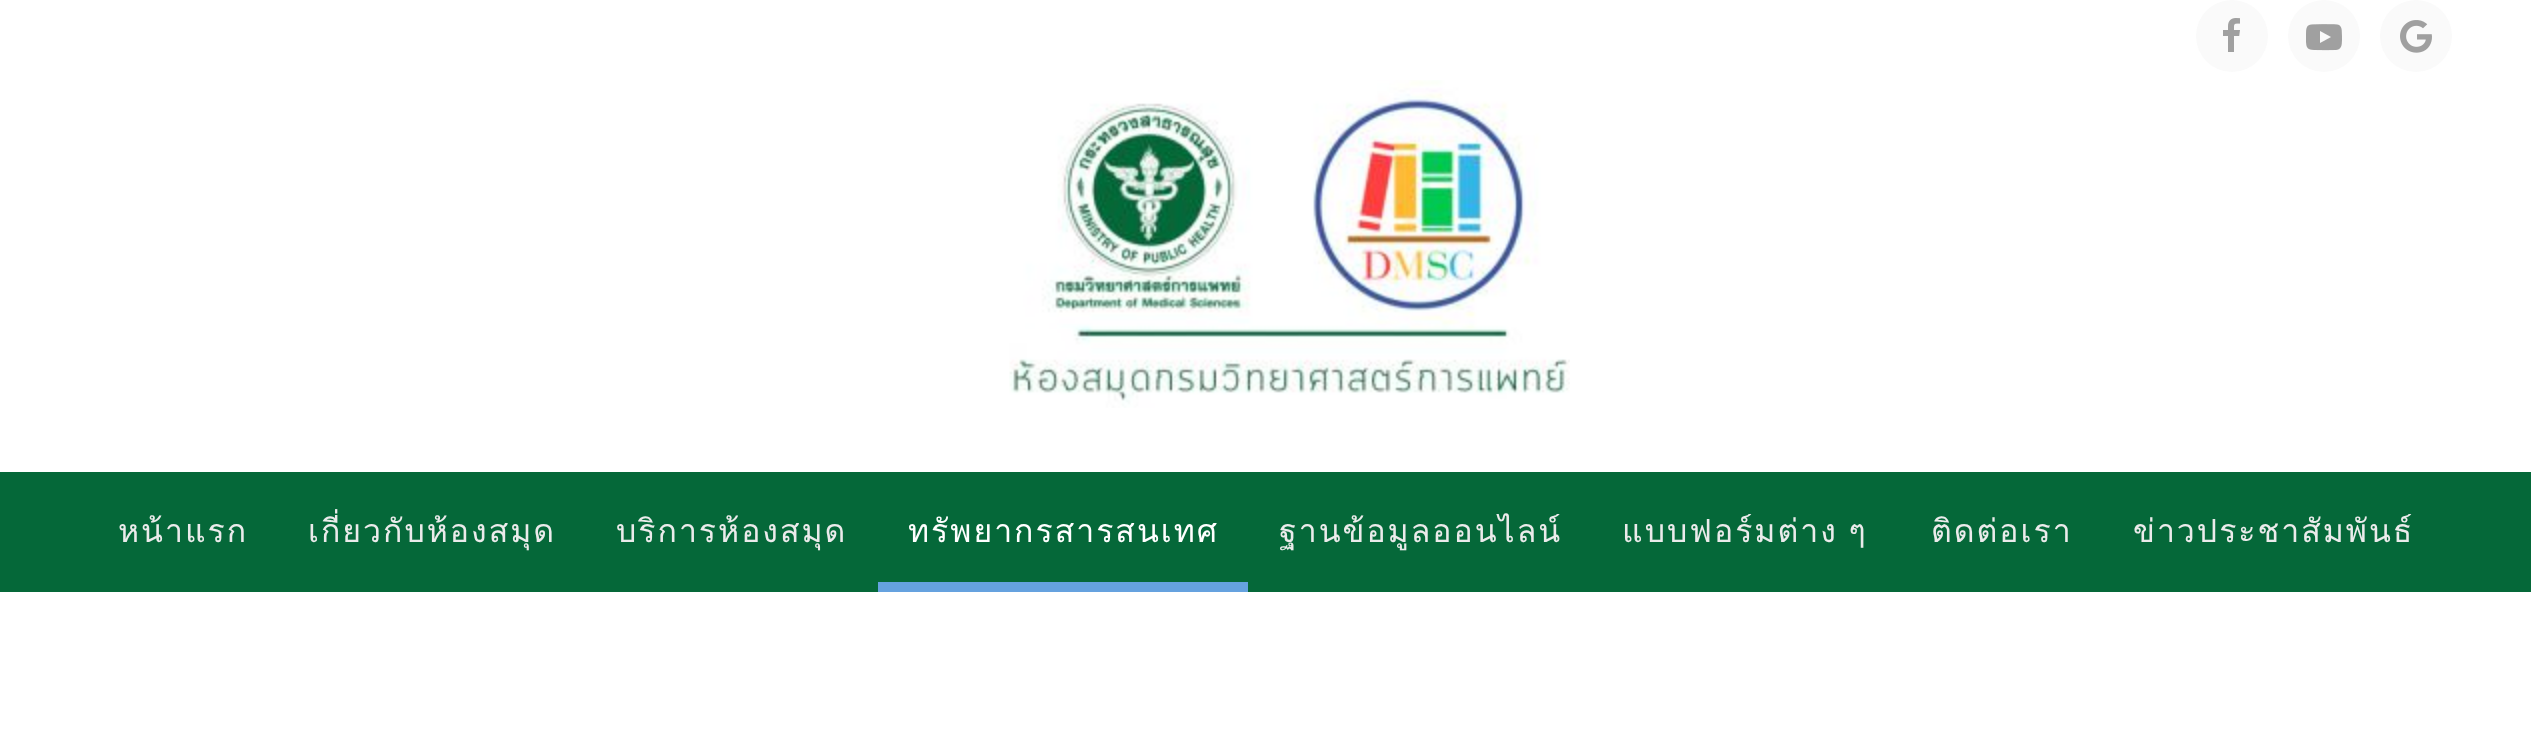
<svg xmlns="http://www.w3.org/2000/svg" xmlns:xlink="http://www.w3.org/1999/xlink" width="2531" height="733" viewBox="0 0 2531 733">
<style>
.cls-1{font:32px Loma;letter-spacing:2px;fill:#ebebeb}
.cls-2{font:32px Loma;letter-spacing:2px;fill:#ffffff}
</style>
<rect width="100%" height="100%" fill="#ffffff"/>
<circle fill="#fafafa" cx="2232" cy="36" r="36"/>
<image xlink:href="image0.png" x="2223" y="18" width="17" height="34"/>
<circle fill="#fafafa" cx="2324" cy="36" r="36"/>
<image xlink:href="image1.png" x="2306" y="24" width="36" height="27"/>
<circle fill="#fafafa" cx="2416" cy="36" r="36"/>
<image xlink:href="image2.png" x="2400" y="20" width="32" height="33"/>
<image xlink:href="image3.png" x="1009" y="80" width="561" height="328"/>
<rect fill="#056839" x="0" y="472" width="2531" height="120"/>
<rect fill="#65a2df" x="878" y="582" width="370" height="10"/>
<text class="cls-1" x="118" y="542">หน้าแรก</text>
<text class="cls-1" x="308" y="542">เกี่ยวกับห้องสมุด</text>
<text class="cls-1" x="616" y="542">บริการห้องสมุด</text>
<text class="cls-2" x="908" y="542">ทรัพยากรสารสนเทศ</text>
<text class="cls-1" x="1279" y="542">ฐานข้อมูลออนไลน์</text>
<text class="cls-1" x="1622" y="542" word-spacing="-2">แบบฟอร์มต่าง ๆ</text>
<text class="cls-1" x="1931" y="542">ติดต่อเรา</text>
<text class="cls-1" x="2133" y="542">ข่าวประชาสัมพันธ์</text>
</svg>
